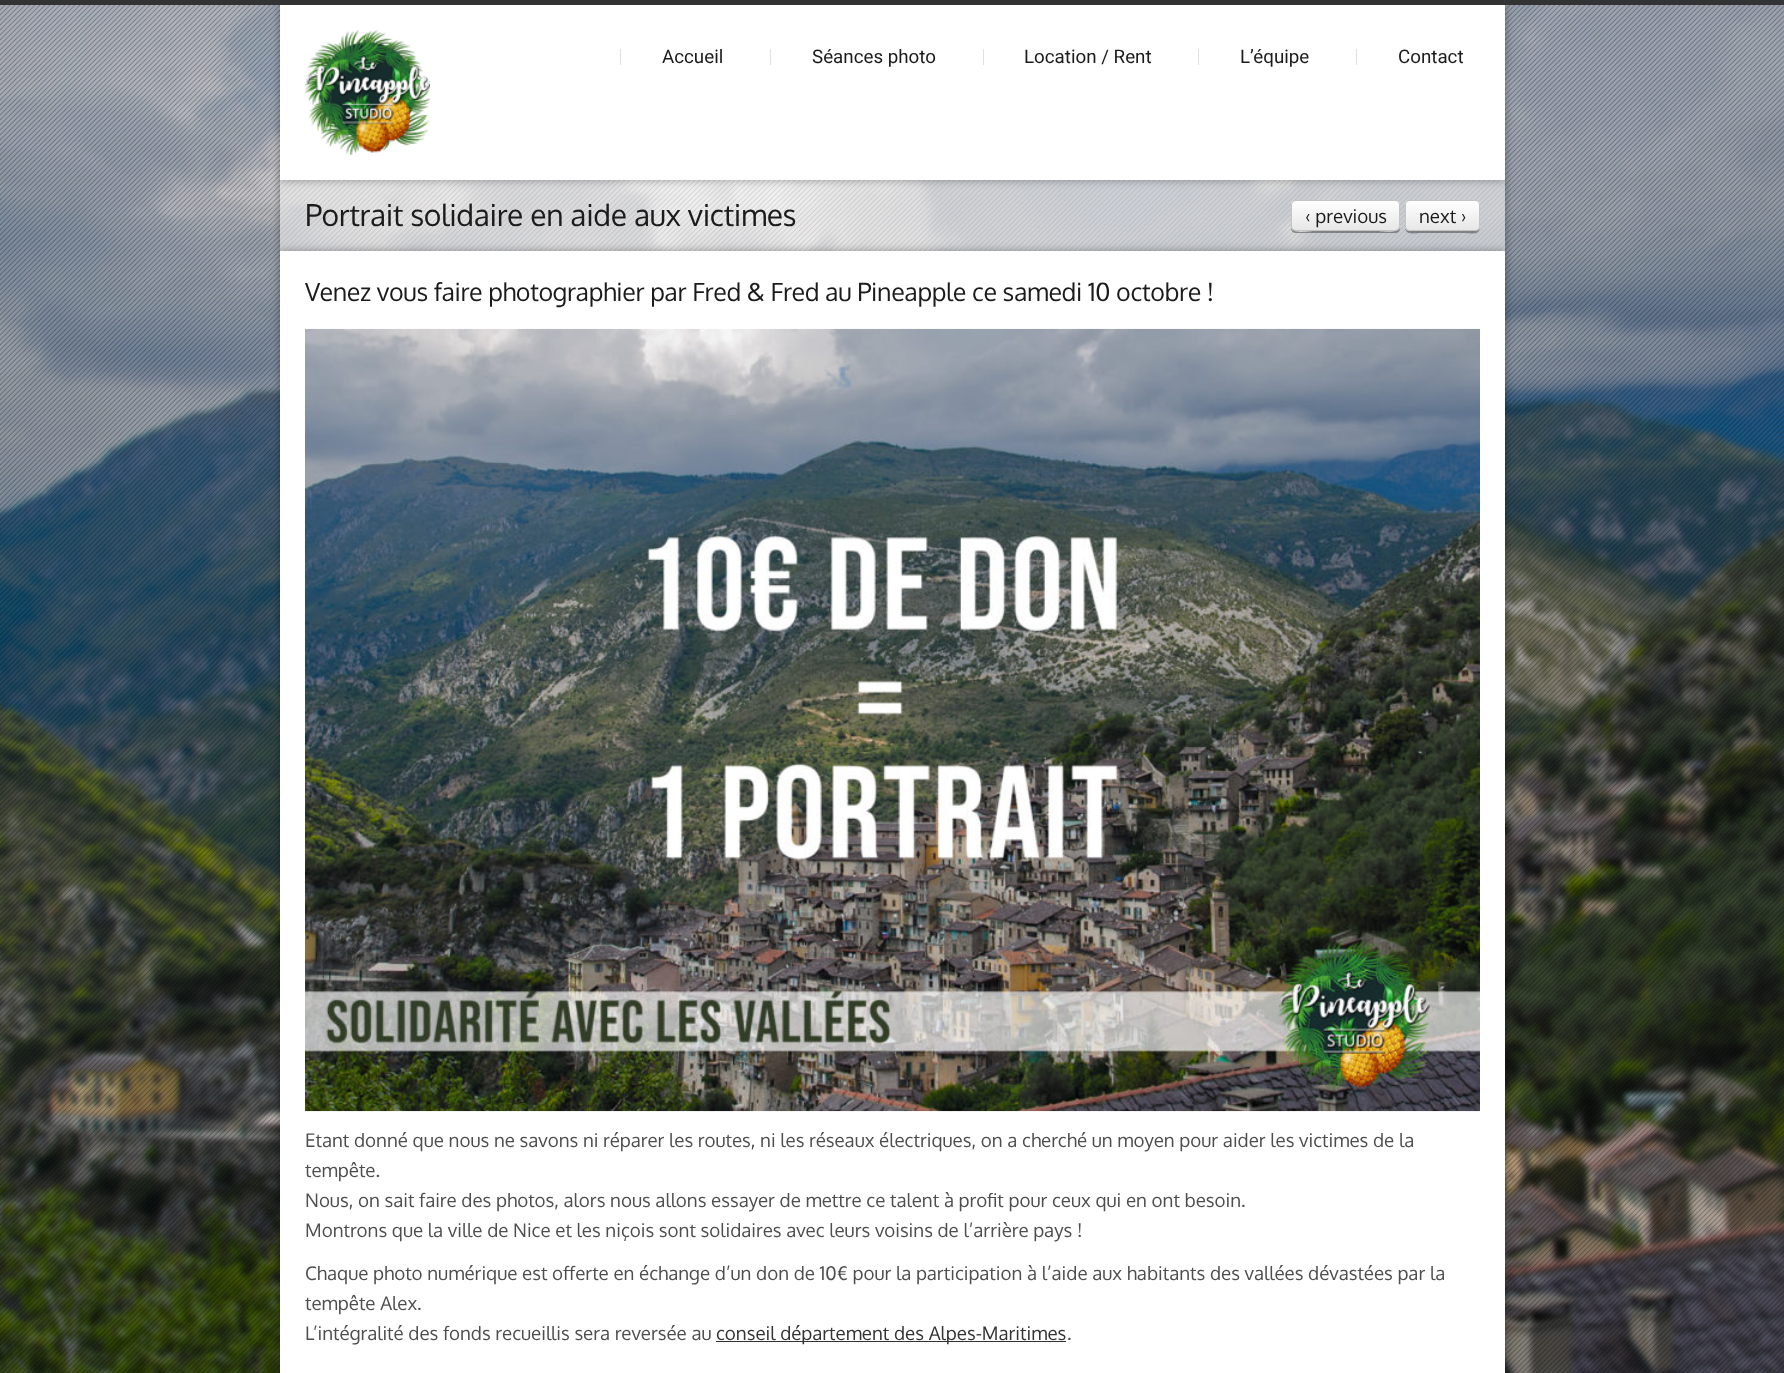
<svg xmlns="http://www.w3.org/2000/svg" xmlns:xlink="http://www.w3.org/1999/xlink" width="1784" height="1373" viewBox="0 0 1784 1373">
<style>
.cls-1{font:18.75px Roboto;fill:#1b1b1b}
.cls-2{font:30px Oxygen;letter-spacing:-0.3px;fill:#1b1b1b}
.cls-3{font:18.75px Oxygen;fill:#1b1b1b}
.cls-4{font:25px Oxygen;letter-spacing:-0.3px;fill:#1b1b1b}
.cls-5{font:18.75px Oxygen;fill:#4e4e4e}
.cls-6{font:18.75px Oxygen;fill:#333333}
</style>
<defs>
<clipPath id="clip1"><path d="M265 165H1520V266H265ZM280 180H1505V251H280Z" clip-rule="evenodd"/></clipPath>
<clipPath id="clip2"><rect x="1291" y="200" width="109" height="31" rx="5"/></clipPath>
<linearGradient id="g1" gradientUnits="userSpaceOnUse" x1="1346" y1="201" x2="1346" y2="230"><stop offset="0" stop-color="#ffffff"/><stop offset="1" stop-color="#e7e7e7"/></linearGradient>
<clipPath id="clip3"><rect x="1405" y="200" width="75" height="31" rx="5"/></clipPath>
<linearGradient id="g2" gradientUnits="userSpaceOnUse" x1="1443" y1="201" x2="1443" y2="230"><stop offset="0" stop-color="#ffffff"/><stop offset="1" stop-color="#e7e7e7"/></linearGradient>
</defs>
<rect width="100%" height="100%" fill="#ffffff"/>
<image xlink:href="image0.png" x="0" y="5" width="1784" height="1368"/>
<image xlink:href="image1.png" x="0" y="5" width="1784" height="1368"/>
<g clip-path="url(#clip1)">
<rect fill="#000000" fill-opacity="0.35" filter="blur(4.5px)" x="280" y="180" width="1225" height="71"/>
</g>
<rect fill="#f0f0f0" fill-opacity="0.6" x="280" y="180" width="1225" height="71"/>
<rect fill="#000000" fill-opacity="0.35" filter="blur(4.5px)" x="280" y="5" width="1225" height="175"/>
<rect fill="#333333" x="0" y="0" width="1784" height="5"/>
<rect fill="#ffffff" x="280" y="5" width="1225" height="175"/>
<image xlink:href="image2.png" x="305" y="30" width="125" height="125"/>
<rect fill="#e0e0e0" x="620" y="49" width="1" height="16"/>
<rect fill="#e0e0e0" x="770" y="49" width="1" height="16"/>
<rect fill="#e0e0e0" x="983" y="49" width="1" height="16"/>
<rect fill="#e0e0e0" x="1198" y="49" width="1" height="16"/>
<rect fill="#e0e0e0" x="1356" y="49" width="1" height="16"/>
<path fill="#000000" fill-opacity="0.35" d="M1291 204V228C1291 231 1293 233 1296 233H1395C1398 233 1400 231 1400 228V226C1400 235 1379 231 1379 231H1313C1312 231 1293 235 1291 227Z"/>
<g clip-path="url(#clip2)">
<rect fill="url(#g1)" x="1291" y="201" width="109" height="29"/>
</g>
<rect fill="none" stroke="#c4c4c4" x="1291.5" y="200.5" width="108" height="30" rx="4.5"/>
<path fill="#000000" fill-opacity="0.35" d="M1405 226C1405 236 1413 233 1421 233H1464C1472 233 1480 236 1480 226C1480 229 1478 231 1475 231H1410C1407 231 1405 229 1405 226Z"/>
<g clip-path="url(#clip3)">
<rect fill="url(#g2)" x="1405" y="201" width="75" height="29"/>
</g>
<path fill="#ffffff" fill-opacity="0.85" d="M1410 202H1475C1477 202 1479 204 1479 206C1479 198 1469 201 1464 201H1421C1416 201 1406 198 1406 206C1406 204 1408 202 1410 202Z"/>
<rect fill="none" stroke="#c4c4c4" x="1405.5" y="200.5" width="74" height="30" rx="4.5"/>
<rect fill="#000000" fill-opacity="0.35" filter="blur(4.5px)" x="280" y="251" width="1225" height="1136"/>
<rect fill="#ffffff" x="280" y="251" width="1225" height="1122"/>
<image xlink:href="image3.png" x="305" y="328" width="1175" height="784"/>
<rect fill="#333333" x="716" y="1341" width="350" height="1"/>
<text class="cls-1" x="662" y="63">Accueil</text>
<text class="cls-1" x="812" y="63">Séances photo</text>
<text class="cls-1" x="1024" y="63">Location / Rent</text>
<text class="cls-1" x="1240" y="63">L’équipe</text>
<text class="cls-1" x="1398" y="63">Contact</text>
<text class="cls-2" x="305" y="226">Portrait solidaire en aide aux victimes</text>
<text class="cls-3" x="1305" y="223">‹ previous</text>
<text class="cls-3" x="1419" y="223">next ›</text>
<text class="cls-4" x="305" y="301">Venez vous faire photographier par Fred &amp; Fred au Pineapple ce samedi 10 octobre !</text>
<text class="cls-5"><tspan x="305" y="1147">Etant donné que nous ne savons ni réparer les routes, ni les réseaux électriques, on a cherché un moyen pour aider les victimes de la</tspan><tspan x="305" y="1177">tempête.</tspan><tspan x="305" y="1207">Nous, on sait faire des photos, alors nous allons essayer de mettre ce talent à profit pour ceux qui en ont besoin.</tspan><tspan x="305" y="1237">Montrons que la ville de Nice et les niçois sont solidaires avec leurs voisins de l’arrière pays !</tspan></text>
<text class="cls-5"><tspan x="305" y="1280">Chaque photo numérique est offerte en échange d’un don de 10€ pour la participation à l’aide aux habitants des vallées dévastées par la</tspan><tspan x="305" y="1310">tempête Alex.</tspan><tspan x="305" y="1340">L’intégralité des fonds recueillis sera reversée au</tspan></text>
<text class="cls-6" x="716" y="1340">conseil département des Alpes-Maritimes</text>
<text class="cls-5" x="1067" y="1340">.</text>
</svg>
